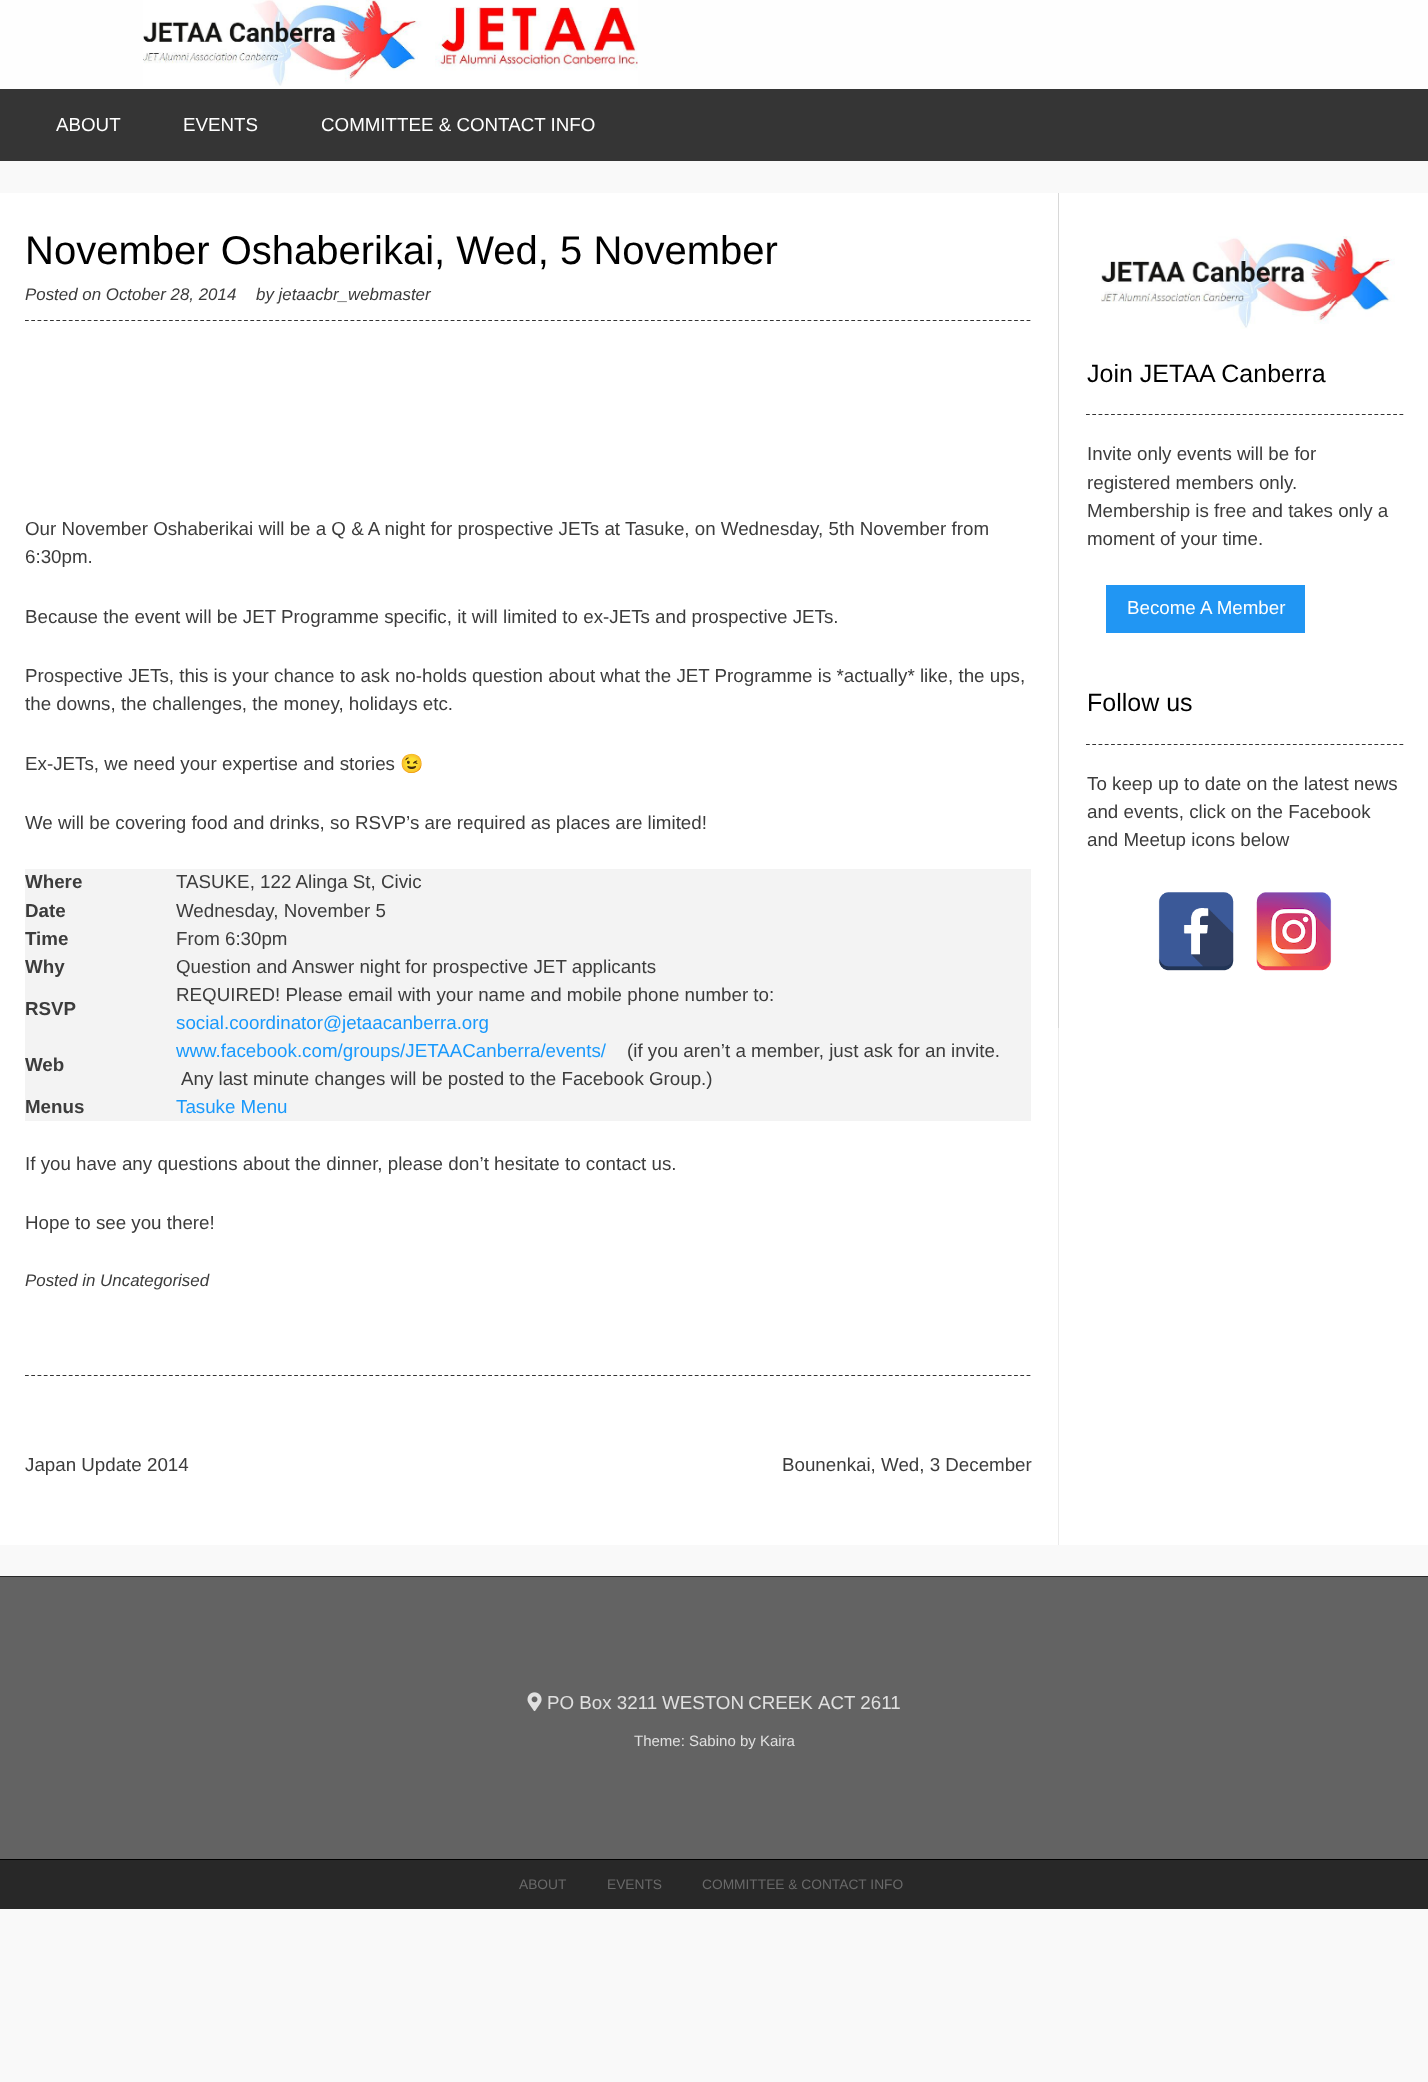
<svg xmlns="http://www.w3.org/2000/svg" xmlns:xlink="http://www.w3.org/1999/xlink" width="1428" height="2082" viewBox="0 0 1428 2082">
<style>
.cls-1{font:18.75px Liberation Sans;fill:#ffffff}
.cls-2{font:40px Liberation Sans;fill:#000000}
.cls-3{font:italic 16.9px Liberation Sans;fill:#3c3c3c}
.cls-4{font:18.75px Liberation Sans;fill:#3c3c3c}
.cls-5{font:18.75px Noto Color Emoji;fill:#3c3c3c}
.cls-6{font:bold 18.75px Liberation Sans;fill:#3c3c3c}
.cls-7{font:18.75px Liberation Sans;fill:#1999fc}
.cls-8{font:25px Liberation Sans;fill:#000000}
.cls-9{font:18.75px Liberation Sans;fill:#e0e0e0}
.cls-10{font:15px Liberation Sans;fill:#e0e0e0}
.cls-11{font:13.75px Liberation Sans;fill:#696969}
</style>
<rect width="100%" height="100%" fill="#f9f9f9"/>
<rect fill="#fefefe" x="0" y="0" width="1428" height="89"/>
<image xlink:href="image0.png" x="143" y="0" width="495" height="86"/>
<rect fill="#353535" x="0" y="89" width="1428" height="72"/>
<rect fill="#ffffff" x="0" y="193" width="1428" height="1352"/>
<rect fill="#ebebeb" x="1058" y="1028" width="1" height="517"/>
<path fill="none" stroke="#333333" stroke-width="1.2" stroke-dasharray="3.75 2.51" d="M25 1375.5H1031"/>
<path fill="none" stroke="#333333" stroke-width="1.2" stroke-dasharray="3.75 2.51" d="M25 320.5H1031"/>
<rect fill="#f3f3f3" x="25" y="869" width="1006" height="252"/>
<path fill="#d8d8d8" d="M1058 193V1028H1403H1059V193Z"/>
<image xlink:href="image1.png" x="1101" y="236" width="294" height="93"/>
<path fill="none" stroke="#333333" stroke-width="1.2" stroke-dasharray="3.75 2.52" d="M1086 414.5H1404"/>
<rect fill="#2196f3" x="1106" y="585" width="199" height="48"/>
<path fill="none" stroke="#333333" stroke-width="1.2" stroke-dasharray="3.75 2.52" d="M1086 744.5H1404"/>
<image xlink:href="image2.png" x="1158" y="892" width="76" height="79"/>
<image xlink:href="image3.png" x="1256" y="892" width="76" height="79"/>
<rect fill="#636363" x="0" y="1577" width="1428" height="282"/>
<rect fill="#282828" x="0" y="1576" width="1428" height="1"/>
<image xlink:href="image4.png" x="527" y="1692" width="15" height="20"/>
<rect fill="#282828" x="0" y="1860" width="1428" height="49"/>
<rect fill="#000000" x="0" y="1859" width="1428" height="1"/>
<text class="cls-1" x="56" y="131">ABOUT</text>
<text class="cls-1" x="183" y="131">EVENTS</text>
<text class="cls-1" x="321" y="131">COMMITTEE &amp; CONTACT INFO</text>
<text class="cls-2" x="25" y="264">November Oshaberikai, Wed, 5 November</text>
<text class="cls-3" x="25" y="300">Posted on October 28, 2014</text>
<text class="cls-3" x="256" y="300">by jetaacbr_webmaster</text>
<text class="cls-4"><tspan x="25" y="535">Our November Oshaberikai will be a Q &amp; A night for prospective JETs at Tasuke, on Wednesday, 5th November from</tspan><tspan x="25" y="563">6:30pm.</tspan></text>
<text class="cls-4" x="25" y="623">Because the event will be JET Programme specific, it will limited to ex-JETs and prospective JETs.</text>
<text class="cls-4"><tspan x="25" y="682">Prospective JETs, this is your chance to ask no-holds question about what the JET Programme is *actually* like, the ups,</tspan><tspan x="25" y="710">the downs, the challenges, the money, holidays etc.</tspan></text>
<text class="cls-4" x="25" y="770">Ex-JETs, we need your expertise and stories</text>
<text class="cls-5" x="400" y="770">😉</text>
<text class="cls-4" x="25" y="829">We will be covering food and drinks, so RSVP’s are required as places are limited!</text>
<text class="cls-6" x="25" y="888">Where</text>
<text class="cls-4" x="176" y="888">TASUKE, 122 Alinga St, Civic</text>
<text class="cls-6" x="25" y="917">Date</text>
<text class="cls-4" x="176" y="917">Wednesday, November 5</text>
<text class="cls-6" x="25" y="945">Time</text>
<text class="cls-4" x="176" y="945">From 6:30pm</text>
<text class="cls-6" x="25" y="973">Why</text>
<text class="cls-4" x="176" y="973">Question and Answer night for prospective JET applicants</text>
<text class="cls-6" x="25" y="1015">RSVP</text>
<text class="cls-4" x="176" y="1001">REQUIRED! Please email with your name and mobile phone number to:</text>
<text class="cls-7" x="176" y="1029">social.coordinator@jetaacanberra.org</text>
<text class="cls-6" x="25" y="1071">Web</text>
<text class="cls-7" x="176" y="1057">www.facebook.com/groups/JETAACanberra/events/</text>
<text class="cls-4" x="627" y="1057">(if you aren’t a member, just ask for an invite.</text>
<text class="cls-4" x="181" y="1085">Any last minute changes will be posted to the Facebook Group.)</text>
<text class="cls-6" x="25" y="1113">Menus</text>
<text class="cls-7" x="176" y="1113">Tasuke Menu</text>
<text class="cls-4" x="25" y="1170">If you have any questions about the dinner, please don’t hesitate to contact us.</text>
<text class="cls-4" x="25" y="1229">Hope to see you there!</text>
<text class="cls-3" x="25" y="1286">Posted in Uncategorised</text>
<text class="cls-4" x="25" y="1471">Japan Update 2014</text>
<text class="cls-4" x="782" y="1471">Bounenkai, Wed, 3 December</text>
<text class="cls-8" x="1087" y="382">Join JETAA Canberra</text>
<text class="cls-4"><tspan x="1087" y="460">Invite only events will be for</tspan><tspan x="1087" y="489">registered members only.</tspan><tspan x="1087" y="517">Membership is free and takes only a</tspan><tspan x="1087" y="545">moment of your time.</tspan></text>
<text class="cls-1" x="1127" y="614">Become A Member</text>
<text class="cls-8" x="1087" y="711">Follow us</text>
<text class="cls-4"><tspan x="1087" y="790">To keep up to date on the latest news</tspan><tspan x="1087" y="818">and events, click on the Facebook</tspan><tspan x="1087" y="846">and Meetup icons below</tspan></text>
<text class="cls-9" x="547" y="1709">PO Box 3211</text>
<text class="cls-9" x="662" y="1709" word-spacing="-1">WESTON CREEK</text>
<text class="cls-9" x="818" y="1709">ACT 2611</text>
<text class="cls-10" x="634" y="1746">Theme: Sabino by Kaira</text>
<text class="cls-11" x="519" y="1889">ABOUT</text>
<text class="cls-11" x="607" y="1889">EVENTS</text>
<text class="cls-11" x="702" y="1889">COMMITTEE &amp; CONTACT INFO</text>
</svg>
